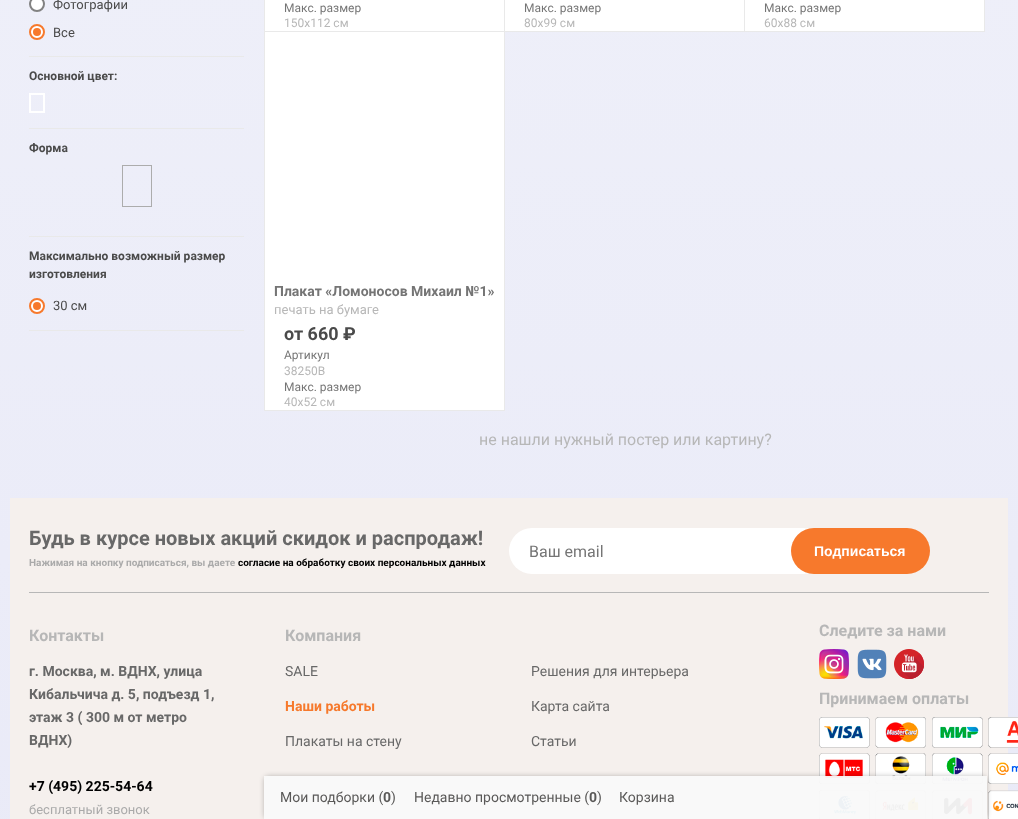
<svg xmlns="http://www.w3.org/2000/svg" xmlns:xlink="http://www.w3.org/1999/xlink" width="1018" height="819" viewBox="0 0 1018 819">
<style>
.cls-1{font:13px Roboto;fill:#4a4a4a}
.cls-2{font:bold 12px Roboto;fill:#4a4a4a}
.cls-3{font:12px Roboto;fill:#757575}
.cls-4{font:12px Roboto;fill:#b7b7b7}
.cls-5{font:bold 14px Roboto;fill:#757575}
.cls-6{font:13px Roboto;fill:#b7b7b7}
.cls-7{font:bold 18px Roboto;fill:#4a4a4a}
.cls-8{font:16px Roboto;fill:#b7b7b7}
.cls-9{font:bold 20px Roboto;fill:#686868}
.cls-10{font:bold 10px Roboto;fill:#aaaaaa}
.cls-11{font:bold 10px Roboto;fill:#000000}
.cls-12{font:16px Roboto;fill:#757575}
.cls-13{font:bold 14px Liberation Sans;fill:#ffffff}
.cls-14{font:bold 16px Roboto;fill:#b7b7b7}
.cls-15{font:bold 14px Roboto;fill:#686868}
.cls-16{font:bold 14px Roboto;fill:#000000}
.cls-17{font:13px Roboto;fill:#aaaaaa}
.cls-18{font:14px Roboto;fill:#686868}
.cls-19{font:bold 14px Roboto;fill:#f6792c}
.cls-20{font:14px Roboto;fill:#5a5958}
.cls-21{font:bold 14px Roboto;fill:#5a5958}
</style>
<defs>
<linearGradient id="g1" gradientUnits="userSpaceOnUse" x1="509" y1="-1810" x2="509" y2="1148"><stop offset="0" stop-color="#f7f8fc"/><stop offset="1" stop-color="#e8e9f7"/></linearGradient>
<clipPath id="clip1"><path d="M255 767H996V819H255ZM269 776H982C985 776 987 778 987 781V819H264V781C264 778 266 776 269 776Z" clip-rule="evenodd"/></clipPath>
</defs>
<rect width="100%" height="100%" fill="#ffffff"/>
<rect fill="url(#g1)" x="0" y="0" width="1018" height="819"/>
<rect fill="#e9e9e9" x="29" y="56" width="215" height="1"/>
<circle fill="#ffffff" stroke="#828282" stroke-width="2" cx="37" cy="4" r="7"/>
<circle fill="#ffffff" stroke="#f7792c" stroke-width="2" cx="37" cy="32" r="7"/>
<circle fill="#f7792c" cx="37" cy="32" r="4"/>
<rect fill="#e9e9e9" x="29" y="128" width="215" height="1"/>
<rect fill="none" stroke="#ffffff" x="30.5" y="94.5" width="13" height="17"/>
<rect fill="none" stroke="#ffffff" x="29.5" y="93.5" width="15" height="19"/>
<rect fill="#e9e9e9" x="29" y="236" width="215" height="1"/>
<rect fill="none" stroke="#acacac" x="122.5" y="165.5" width="29" height="41"/>
<rect fill="#e9e9e9" x="29" y="330" width="215" height="1"/>
<circle fill="#ffffff" stroke="#f7792c" stroke-width="2" cx="37" cy="306" r="7"/>
<circle fill="#f7792c" cx="37" cy="306" r="4"/>
<rect fill="#ffffff" stroke="#e9e9e9" x="264.5" y="-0.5" width="240" height="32"/>
<rect fill="#ffffff" stroke="#e9e9e9" x="504.5" y="-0.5" width="240" height="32"/>
<rect fill="#ffffff" stroke="#e9e9e9" x="744.5" y="-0.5" width="240" height="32"/>
<rect fill="#ffffff" stroke="#e9e9e9" x="264.5" y="31.5" width="240" height="379"/>
<rect fill="#f5f0ed" x="10" y="498" width="998" height="321"/>
<rect fill="#b7b7b7" x="29" y="592" width="960" height="1"/>
<rect fill="#ffffff" x="509" y="528" width="317" height="46" rx="23"/>
<rect fill="#f7792c" x="791" y="528" width="139" height="46" rx="23"/>
<image xlink:href="image0.png" x="819" y="649" width="30" height="30"/>
<image xlink:href="image1.png" x="857" y="649" width="30" height="30"/>
<image xlink:href="image2.png" x="894" y="649" width="30" height="30"/>
<image xlink:href="image3.png" x="819" y="717" width="199" height="102"/>
<g clip-path="url(#clip1)">
<rect fill="#000000" fill-opacity="0.24" filter="blur(2.5px)" x="264" y="776" width="723" height="43" rx="5"/>
</g>
<path fill="#dfdfdf" fill-opacity="0.8" d="M269 776H982C985 776 987 778 987 781V819H264V781C264 778 266 776 269 776Z"/>
<rect fill="#ffffff" fill-opacity="0.78" x="264" y="776" width="723" height="43"/>
<text class="cls-1" x="53" y="9">Фотографии</text>
<text class="cls-1" x="53" y="37">Все</text>
<text class="cls-2" x="29" y="80">Основной цвет:</text>
<text class="cls-2" x="29" y="152">Форма</text>
<text class="cls-2"><tspan x="29" y="260">Максимально возможный размер</tspan><tspan x="29" y="278">изготовления</tspan></text>
<text class="cls-1" x="53" y="310">30 см</text>
<text class="cls-3" x="284" y="12">Макс. размер</text>
<text class="cls-4" x="284" y="27">150x112 см</text>
<text class="cls-3" x="524" y="12">Макс. размер</text>
<text class="cls-4" x="524" y="27">80x99 см</text>
<text class="cls-3" x="764" y="12">Макс. размер</text>
<text class="cls-4" x="764" y="27">60x88 см</text>
<text class="cls-5" x="274" y="296">Плакат «Ломоносов Михаил №1»</text>
<text class="cls-6" x="274" y="314">печать на бумаге</text>
<text class="cls-7" x="284" y="340">от 660 ₽</text>
<text class="cls-3" x="284" y="359">Артикул</text>
<text class="cls-4" x="284" y="375">38250B</text>
<text class="cls-3" x="284" y="391">Макс. размер</text>
<text class="cls-4" x="284" y="406">40x52 см</text>
<text class="cls-8" x="479" y="445">не нашли нужный постер или картину?</text>
<text class="cls-9" x="29" y="545">Будь в курсе новых акций скидок и распродаж!</text>
<text class="cls-10" x="29" y="566">Нажимая на кнопку подписаться, вы даете</text>
<text class="cls-11" x="238" y="566">согласие на обработку своих персональных данных</text>
<text class="cls-12" x="529" y="557">Ваш email</text>
<text class="cls-13" x="814" y="556">Подписаться</text>
<text class="cls-14" x="29" y="641">Контакты</text>
<text class="cls-15"><tspan x="29" y="676">г. Москва, м. ВДНХ, улица</tspan><tspan x="29" y="699">Кибальчича д. 5, подъезд 1,</tspan><tspan x="29" y="722">этаж 3 ( 300 м от метро</tspan><tspan x="29" y="745">ВДНХ)</tspan></text>
<text class="cls-16" x="29" y="791">+7 (495) 225-54-64</text>
<text class="cls-17" x="29" y="814">бесплатный звонок</text>
<text class="cls-14" x="285" y="641">Компания</text>
<text class="cls-18" x="285" y="676">SALE</text>
<text class="cls-18" x="531" y="676">Решения для интерьера</text>
<text class="cls-19" x="285" y="711">Наши работы</text>
<text class="cls-18" x="531" y="711">Карта сайта</text>
<text class="cls-18" x="285" y="746">Плакаты на стену</text>
<text class="cls-18" x="531" y="746">Статьи</text>
<text class="cls-14" x="819" y="636">Следите за нами</text>
<text class="cls-14" x="819" y="704">Принимаем оплаты</text>
<text class="cls-20" x="280" y="802">Мои подборки (</text>
<text class="cls-21" x="383" y="802">0</text>
<text class="cls-20" x="391" y="802">)</text>
<text class="cls-20" x="414" y="802">Недавно просмотренные (</text>
<text class="cls-21" x="589" y="802">0</text>
<text class="cls-20" x="597" y="802">)</text>
<text class="cls-20" x="619" y="802">Корзина</text>
</svg>
